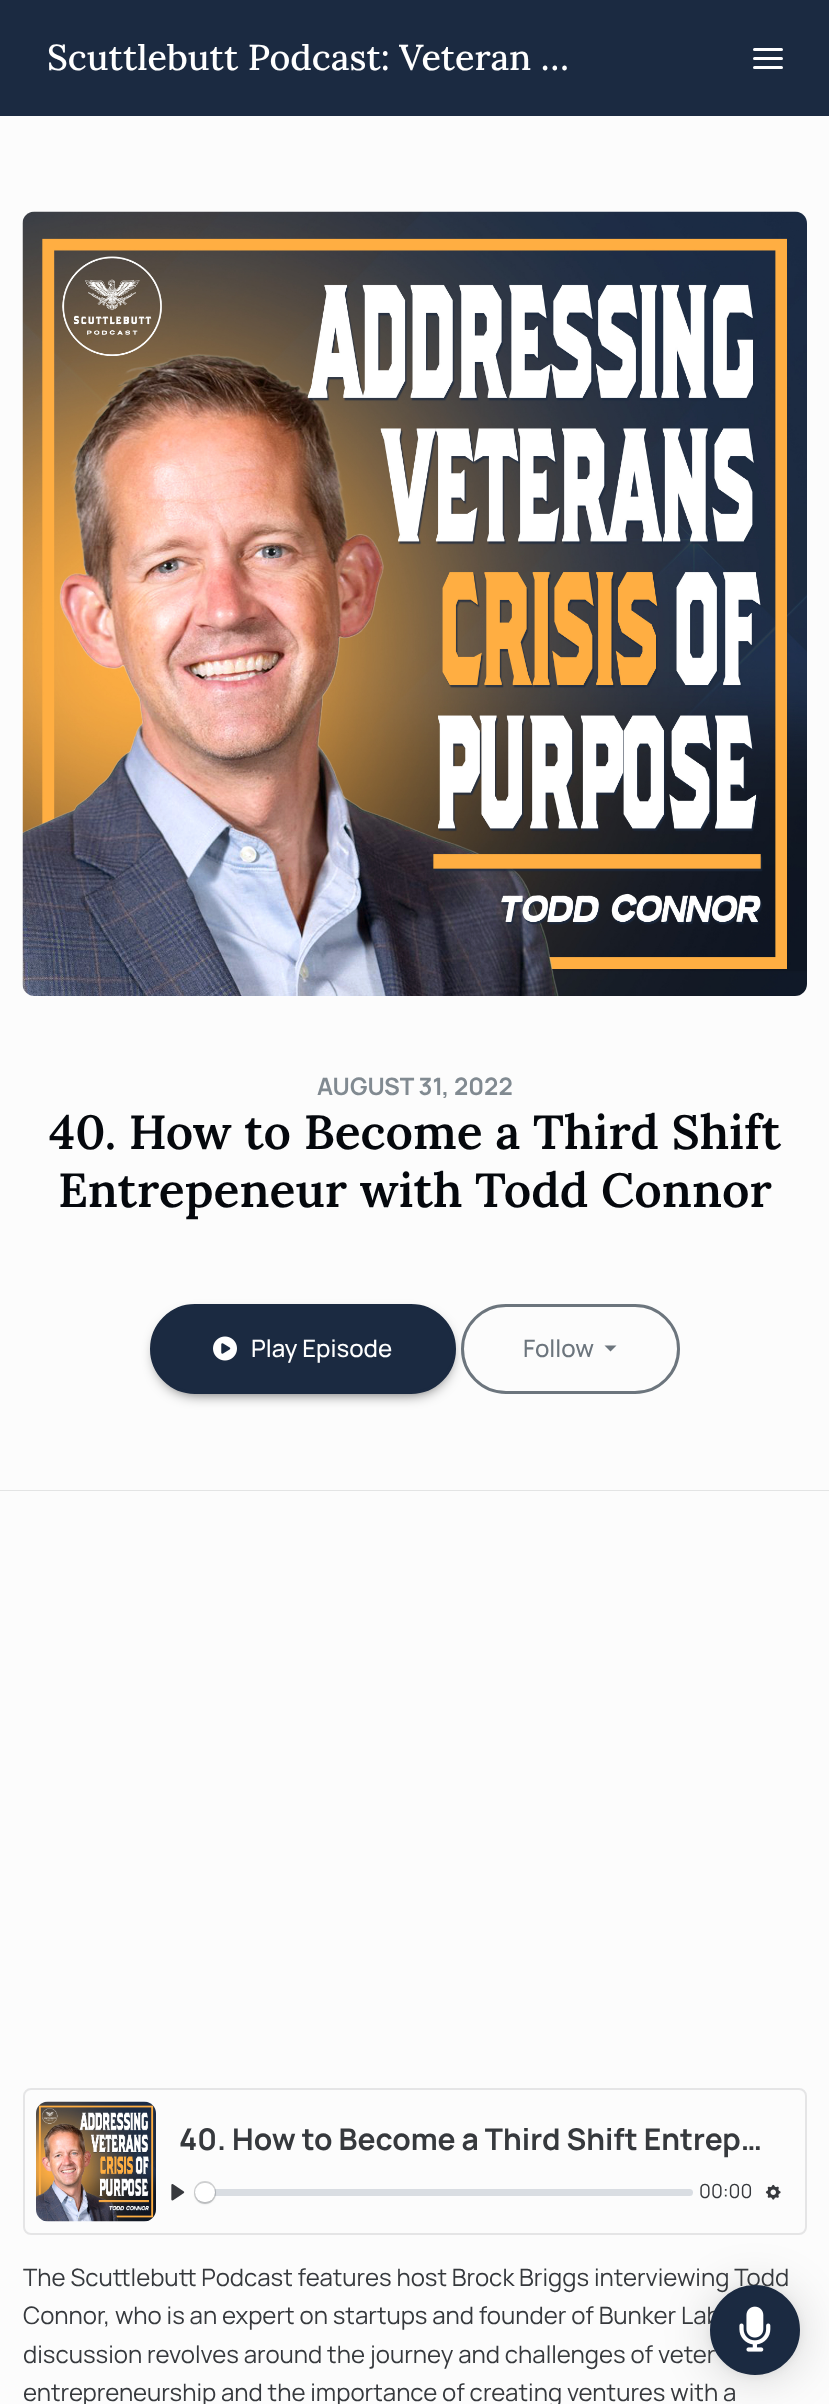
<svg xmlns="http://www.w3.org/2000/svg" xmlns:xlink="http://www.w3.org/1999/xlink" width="829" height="2404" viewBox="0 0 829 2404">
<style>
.cls-1{font:500 36px Lora;fill:#ffffff}
.cls-2{font:bold 24px Manrope;fill:#818a91}
.cls-3{font:600 48px Lora;fill:#05080d}
.cls-4{font:500 24px Manrope;fill:#ffffff}
.cls-5{font:500 24px Manrope;fill:#6c757d}
.cls-6{font:bold 30px Manrope;fill:#36393d}
.cls-7{font:19.5px Manrope;fill:#36393d}
.cls-8{font:24px Manrope;fill:#36393d}
</style>
<defs>
<clipPath id="clip1"><rect x="47" y="44" width="625" height="30"/></clipPath>
</defs>
<rect width="100%" height="100%" fill="#fcfcfc"/>
<rect fill="#1b2a41" x="0" y="0" width="829" height="116"/>
<rect fill="#ffffff" x="753" y="48" width="30" height="3" rx="1.5"/>
<rect fill="#ffffff" x="753" y="57" width="30" height="3" rx="1.5"/>
<rect fill="#ffffff" x="753" y="66" width="30" height="3" rx="1.5"/>
<rect fill="#e3e4e4" x="0" y="1490" width="829" height="1"/>
<image xlink:href="image0.png" x="22" y="211" width="785" height="785"/>
<rect fill="#000000" fill-opacity="0.8" filter="blur(7.5px)" x="158" y="1317" width="291" height="75" rx="37.5"/>
<rect fill="#1b2a41" stroke="#1b2a41" stroke-width="3" x="151.5" y="1305.5" width="303" height="87" rx="43.5"/>
<image xlink:href="image1.png" x="213" y="1336" width="24" height="25"/>
<rect fill="none" stroke="#6c757d" stroke-width="3" x="462.5" y="1305.5" width="216" height="87" rx="43.5"/>
<path fill="#6c757d" d="M604.5 1345.5H616.5L610.5 1351.5Z"/>
<rect fill="none" stroke="#e5e5e6" stroke-width="2" x="24" y="2089" width="782" height="145" rx="7"/>
<image xlink:href="image2.png" x="36" y="2101" width="120" height="121"/>
<image xlink:href="image3.png" x="171" y="2184" width="14" height="17"/>
<rect fill="#c1c8d1" fill-opacity="0.6" x="195" y="2189" width="498" height="7" rx="3.5"/>
<rect fill="none" stroke="#23282f" stroke-opacity="0.2" stroke-width="2" x="195" y="2182" width="20" height="21" rx="10"/>
<rect fill="#23282f" fill-opacity="0.15" filter="blur(1px)" x="195" y="2184" width="20" height="20" rx="10"/>
<rect fill="#ffffff" x="195" y="2183" width="20" height="19" rx="9.5"/>
<path fill="#ffffff" d="M199 2184.5H209L204 2189.5Z"/>
<image xlink:href="image4.png" x="765" y="2184" width="16" height="16"/>
<rect fill="#000000" fill-opacity="0.16" filter="blur(24px)" x="710" y="2288" width="90" height="90" rx="45"/>
<rect fill="#000000" fill-opacity="0.06" filter="blur(4.5px)" x="710" y="2286" width="90" height="90" rx="45"/>
<g clip-path="url(#clip1)">
<text class="cls-1" x="47" y="70">Scuttlebutt Podcast: Veteran …</text>
</g>
<text class="cls-2" x="317" y="1095">AUGUST 31, 2022</text>
<text class="cls-3" x="49" y="1149">40. How to Become a Third Shift</text>
<text class="cls-3" x="58" y="1207">Entrepeneur with Todd Connor</text>
<text class="cls-4" x="251" y="1357">Play Episode</text>
<text class="cls-5" x="523" y="1357">Follow</text>
<text class="cls-6" x="179" y="2150">40. How to Become a Third Shift Entrep…</text>
<text class="cls-7" x="699" y="2198">00:00</text>
<text class="cls-8"><tspan x="23" y="2286">The Scuttlebutt Podcast features host Brock Briggs interviewing Todd</tspan><tspan x="23" y="2324">Connor, who is an expert on startups and founder of Bunker Lab</tspan><tspan x="23" y="2363">discussion revolves around the journey and challenges of veter</tspan><tspan x="23" y="2401">entrepreneurship and the importance of creating ventures with a</tspan></text>
<circle fill="#1b2a41" stroke="#1b2a41" stroke-width="2" cx="755" cy="2330" r="44"/>
<image xlink:href="image5.png" x="739" y="2306" width="32" height="46"/>
</svg>
